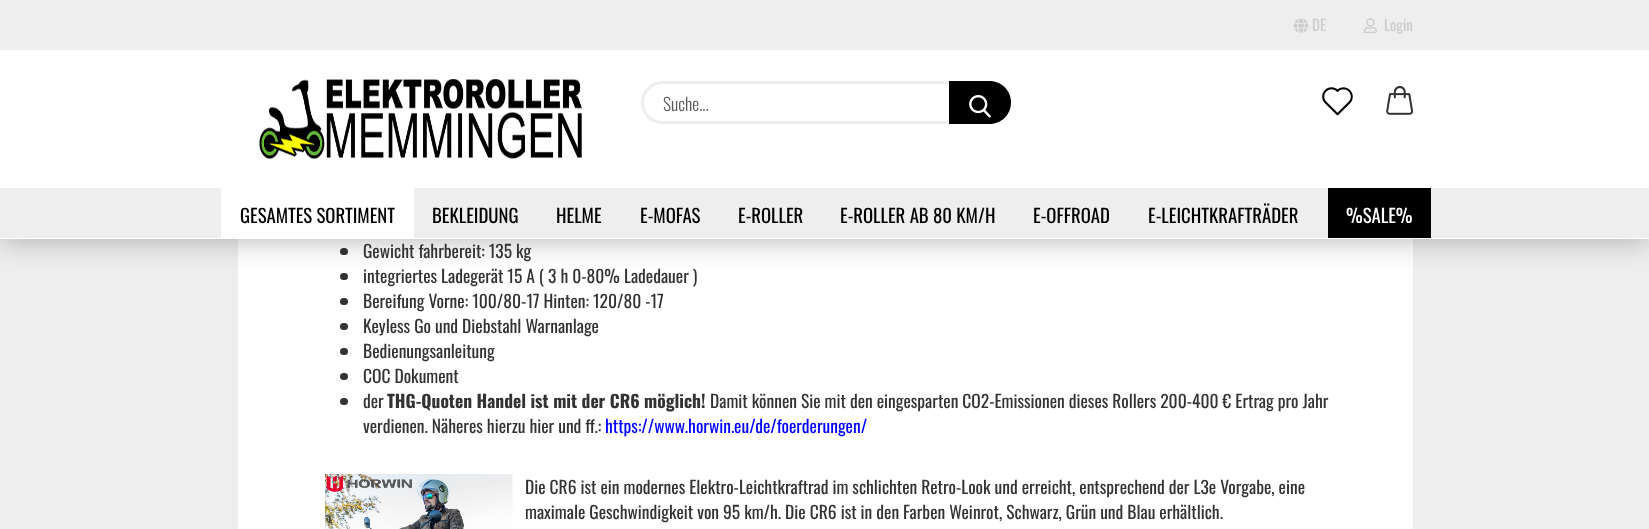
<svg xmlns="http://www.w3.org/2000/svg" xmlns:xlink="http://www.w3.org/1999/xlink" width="1649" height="529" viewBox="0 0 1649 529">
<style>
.cls-1{font:15px Oswald;fill:#cccccc}
.cls-2{font:300 17.5px Oswald;fill:#595959}
.cls-3{font:18.75px Oswald;fill:#000000}
.cls-4{font:18.75px Oswald;fill:#ffffff}
.cls-5{font:17.5px Oswald;fill:#333333}
.cls-6{font:bold 17.5px Oswald;fill:#333333}
.cls-7{font:17.5px Oswald;fill:#0000ff}
</style>
<rect width="100%" height="100%" fill="#eeeeee"/>
<rect fill="#ffffff" x="238" y="239" width="1175" height="290"/>
<rect fill="#333333" x="340" y="248" width="8" height="7" rx="3.5"/>
<rect fill="#333333" x="340" y="273" width="8" height="7" rx="3.5"/>
<rect fill="#000000" fill-opacity="0.3" filter="blur(15.5px)" x="0" y="0" width="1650" height="239"/>
<rect fill="#ffffff" x="0" y="50" width="1649" height="189"/>
<rect fill="#eeeeee" x="0" y="0" width="1649" height="50"/>
<image xlink:href="image0.png" x="1293" y="18" width="16" height="15"/>
<image xlink:href="image1.png" x="1363" y="18" width="14" height="16"/>
<image xlink:href="image2.png" x="259" y="79" width="323" height="80"/>
<rect fill="none" stroke="#eeeeee" stroke-width="3" x="642.5" y="82.5" width="365" height="40" rx="20"/>
<path fill="#000000" d="M949 81H989.5C1001.5 81 1011 90.5 1011 102.5C1011 114.5 1001.5 124 989.5 124H949Z"/>
<image xlink:href="image3.png" x="969" y="95" width="22" height="23"/>
<image xlink:href="image4.png" x="1322" y="87" width="31" height="29"/>
<image xlink:href="image5.png" x="1386" y="85" width="28" height="30"/>
<rect fill="#eeeeee" x="0" y="188" width="1649" height="50"/>
<rect fill="#ffffff" x="221" y="188" width="193" height="50"/>
<rect fill="#000000" x="1328" y="188" width="103" height="50"/>
<rect fill="#333333" x="340" y="298" width="8" height="7" rx="3.5"/>
<rect fill="#333333" x="340" y="323" width="8" height="7" rx="3.5"/>
<rect fill="#333333" x="340" y="348" width="8" height="7" rx="3.5"/>
<rect fill="#333333" x="340" y="373" width="8" height="7" rx="3.5"/>
<rect fill="#333333" x="340" y="398" width="8" height="7" rx="3.5"/>
<image xlink:href="image6.png" x="325" y="474" width="188" height="55"/>
<text class="cls-1" x="1312" y="31">DE</text>
<text class="cls-1" x="1384" y="31">Login</text>
<text class="cls-2" x="663" y="111">Suche...</text>
<text class="cls-3" x="240" y="223">GESAMTES SORTIMENT</text>
<text class="cls-3" x="432" y="223">BEKLEIDUNG</text>
<text class="cls-3" x="556" y="223">HELME</text>
<text class="cls-3" x="640" y="223">E-MOFAS</text>
<text class="cls-3" x="738" y="223">E-ROLLER</text>
<text class="cls-3" x="840" y="223">E-ROLLER AB 80 KM/H</text>
<text class="cls-3" x="1033" y="223">E-OFFROAD</text>
<text class="cls-3" x="1148" y="223">E-LEICHTKRAFTRÄDER</text>
<text class="cls-4" x="1346" y="223">%SALE%</text>
<text class="cls-5"><tspan x="363" y="258">Gewicht fahrbereit: 135 kg</tspan><tspan x="363" y="283">integriertes Ladegerät 15 A ( 3 h 0-80% Ladedauer )</tspan><tspan x="363" y="308">Bereifung Vorne: 100/80-17 Hinten: 120/80 -17</tspan><tspan x="363" y="333">Keyless Go und Diebstahl Warnanlage</tspan><tspan x="363" y="358">Bedienungsanleitung</tspan><tspan x="363" y="383">COC Dokument</tspan><tspan x="363" y="408">der</tspan></text>
<text class="cls-6" x="387" y="408">THG-Quoten Handel ist mit der CR6 möglich!</text>
<text class="cls-5" x="710" y="408">Damit können Sie mit den eingesparten CO2-Emissionen dieses Rollers 200-400 € Ertrag pro Jahr</text>
<text class="cls-5" x="363" y="433">verdienen. Näheres hierzu hier und ff.:</text>
<text class="cls-7" x="605" y="433">https://www.horwin.eu/de/foerderungen/</text>
<text class="cls-5"><tspan x="525" y="494">Die CR6 ist ein modernes Elektro-Leichtkraftrad im schlichten Retro-Look und erreicht, entsprechend der L3e Vorgabe, eine</tspan><tspan x="525" y="519">maximale Geschwindigkeit von 95 km/h. Die CR6 ist in den Farben Weinrot, Schwarz, Grün und Blau erhältlich.</tspan></text>
</svg>
